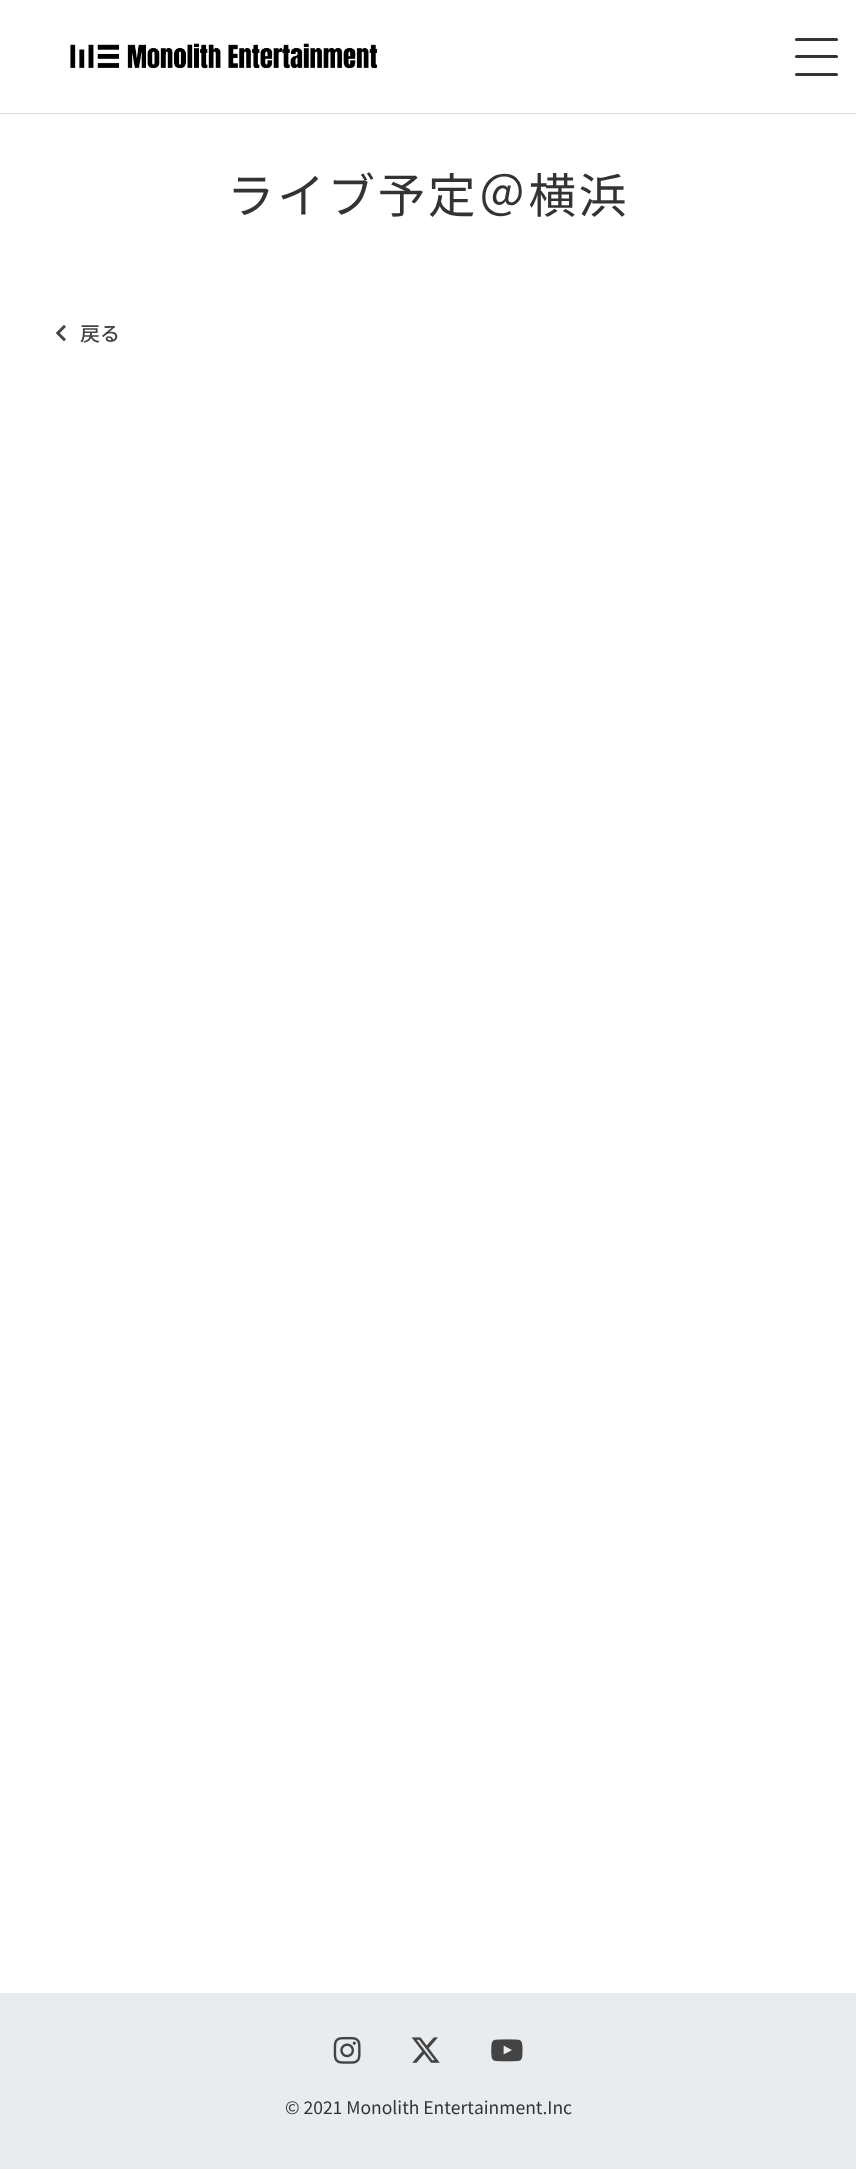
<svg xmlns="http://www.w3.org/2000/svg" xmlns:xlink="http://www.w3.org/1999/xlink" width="856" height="2169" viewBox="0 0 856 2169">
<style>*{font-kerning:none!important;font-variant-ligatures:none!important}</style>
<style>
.cls-1{font:47.5px Noto Sans JP;letter-spacing:2.75px;fill:#333333}
.cls-2{font:500 20px Noto Sans JP;fill:#444444}
.cls-3{font:17.5px Noto Sans JP;fill:#333333}
</style>
<rect width="100%" height="100%" fill="#ffffff"/>
<rect fill="#dddddd" x="0" y="113" width="856" height="1"/>
<image xlink:href="image0.png" x="70" y="43" width="308" height="26"/>
<rect fill="#333333" x="795" y="38" width="43" height="3" rx="1.5"/>
<rect fill="#333333" x="795" y="55" width="43" height="3" rx="1.5"/>
<rect fill="#333333" x="795" y="73" width="43" height="3" rx="1.5"/>
<image xlink:href="image1.png" x="56" y="325" width="10" height="16"/>
<rect fill="#e8ecef" x="0" y="1993" width="856" height="176"/>
<image xlink:href="image2.png" x="333" y="2036" width="28" height="28"/>
<image xlink:href="image3.png" x="411" y="2037" width="29" height="26"/>
<image xlink:href="image4.png" x="491" y="2039" width="32" height="23"/>
<text class="cls-1" x="227" y="213">ライブ予定＠横浜</text>
<text class="cls-2" x="80" y="341">戻る</text>
<text class="cls-3" x="285" y="2114">© 2021 Monolith Entertainment.Inc</text>
</svg>
